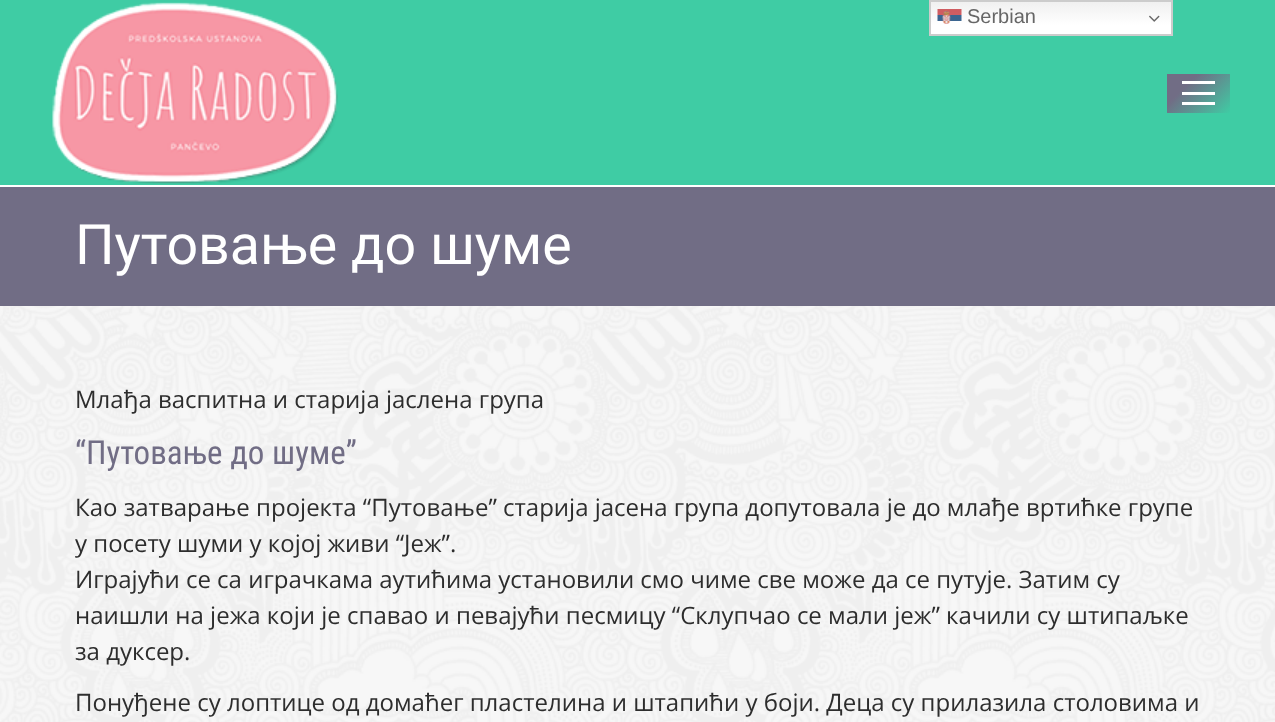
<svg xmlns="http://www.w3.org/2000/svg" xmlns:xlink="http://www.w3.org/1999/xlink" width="1275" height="722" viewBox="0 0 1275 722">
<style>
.cls-1{font:20px Liberation Sans;fill:#666666}
.cls-2{font:55.5px Roboto;fill:#ffffff}
.cls-3{font:24px Open Sans;fill:#2d2d2d}
.cls-4{font:33px Roboto Condensed;fill:#716d85}
</style>
<defs>
<linearGradient id="g1" gradientUnits="userSpaceOnUse" x1="1051" y1="0" x2="1051" y2="36"><stop offset="0" stop-color="#efefef"/><stop offset="0.7" stop-color="#ffffff"/></linearGradient>
<linearGradient id="g2" gradientUnits="userSpaceOnUse" x1="1173" y1="68" x2="1224" y2="119"><stop offset="0.3" stop-color="#716d85"/><stop offset="1" stop-color="#3fcca4"/></linearGradient>
</defs>
<rect width="100%" height="100%" fill="#ffffff"/>
<rect fill="#3fcca4" x="0" y="0" width="1275" height="185"/>
<rect fill="url(#g1)" x="931" y="2" width="240" height="32"/>
<rect fill="none" stroke="#cccccc" stroke-width="2" x="930" y="1" width="242" height="34"/>
<image xlink:href="image0.png" x="937" y="9" width="25" height="15"/>
<image xlink:href="image1.png" x="1149" y="15" width="11" height="7"/>
<image xlink:href="image2.png" x="0" y="306" width="1275" height="416"/>
<image xlink:href="image3.png" x="52" y="2" width="286" height="182"/>
<rect fill="url(#g2)" x="1167" y="74" width="63" height="39"/>
<rect fill="#ffffff" x="1182" y="81" width="33" height="3"/>
<rect fill="#ffffff" x="1182" y="92" width="33" height="3"/>
<rect fill="#ffffff" x="1182" y="102" width="33" height="3"/>
<rect fill="#716d85" x="0" y="187" width="1275" height="119"/>
<text class="cls-1" x="967" y="23">Serbian</text>
<text class="cls-2" x="75" y="264">Путовање до шуме</text>
<text class="cls-3" x="75" y="408">Млађа васпитна и старија јаслена група</text>
<text class="cls-4" x="75" y="464">“Путовање до шуме”</text>
<text class="cls-3"><tspan x="75" y="516">Као затварање пројекта “Путовање” старија јасена група допутовала је до млађе вртићке групе</tspan><tspan x="75" y="552">у посету шуми у којој живи “Јеж”.</tspan><tspan x="75" y="588">Играјући се са играчкама аутићима установили смо чиме све може да се путује. Затим су</tspan><tspan x="75" y="624">наишли на јежа који је спавао и певајући песмицу “Склупчао се мали јеж” качили су штипаљке</tspan><tspan x="75" y="660">за дуксер.</tspan></text>
<text class="cls-3" x="75" y="711">Понуђене су лоптице од домаћег пластелина и штапићи у боји. Деца су прилазила столовима и</text>
</svg>
